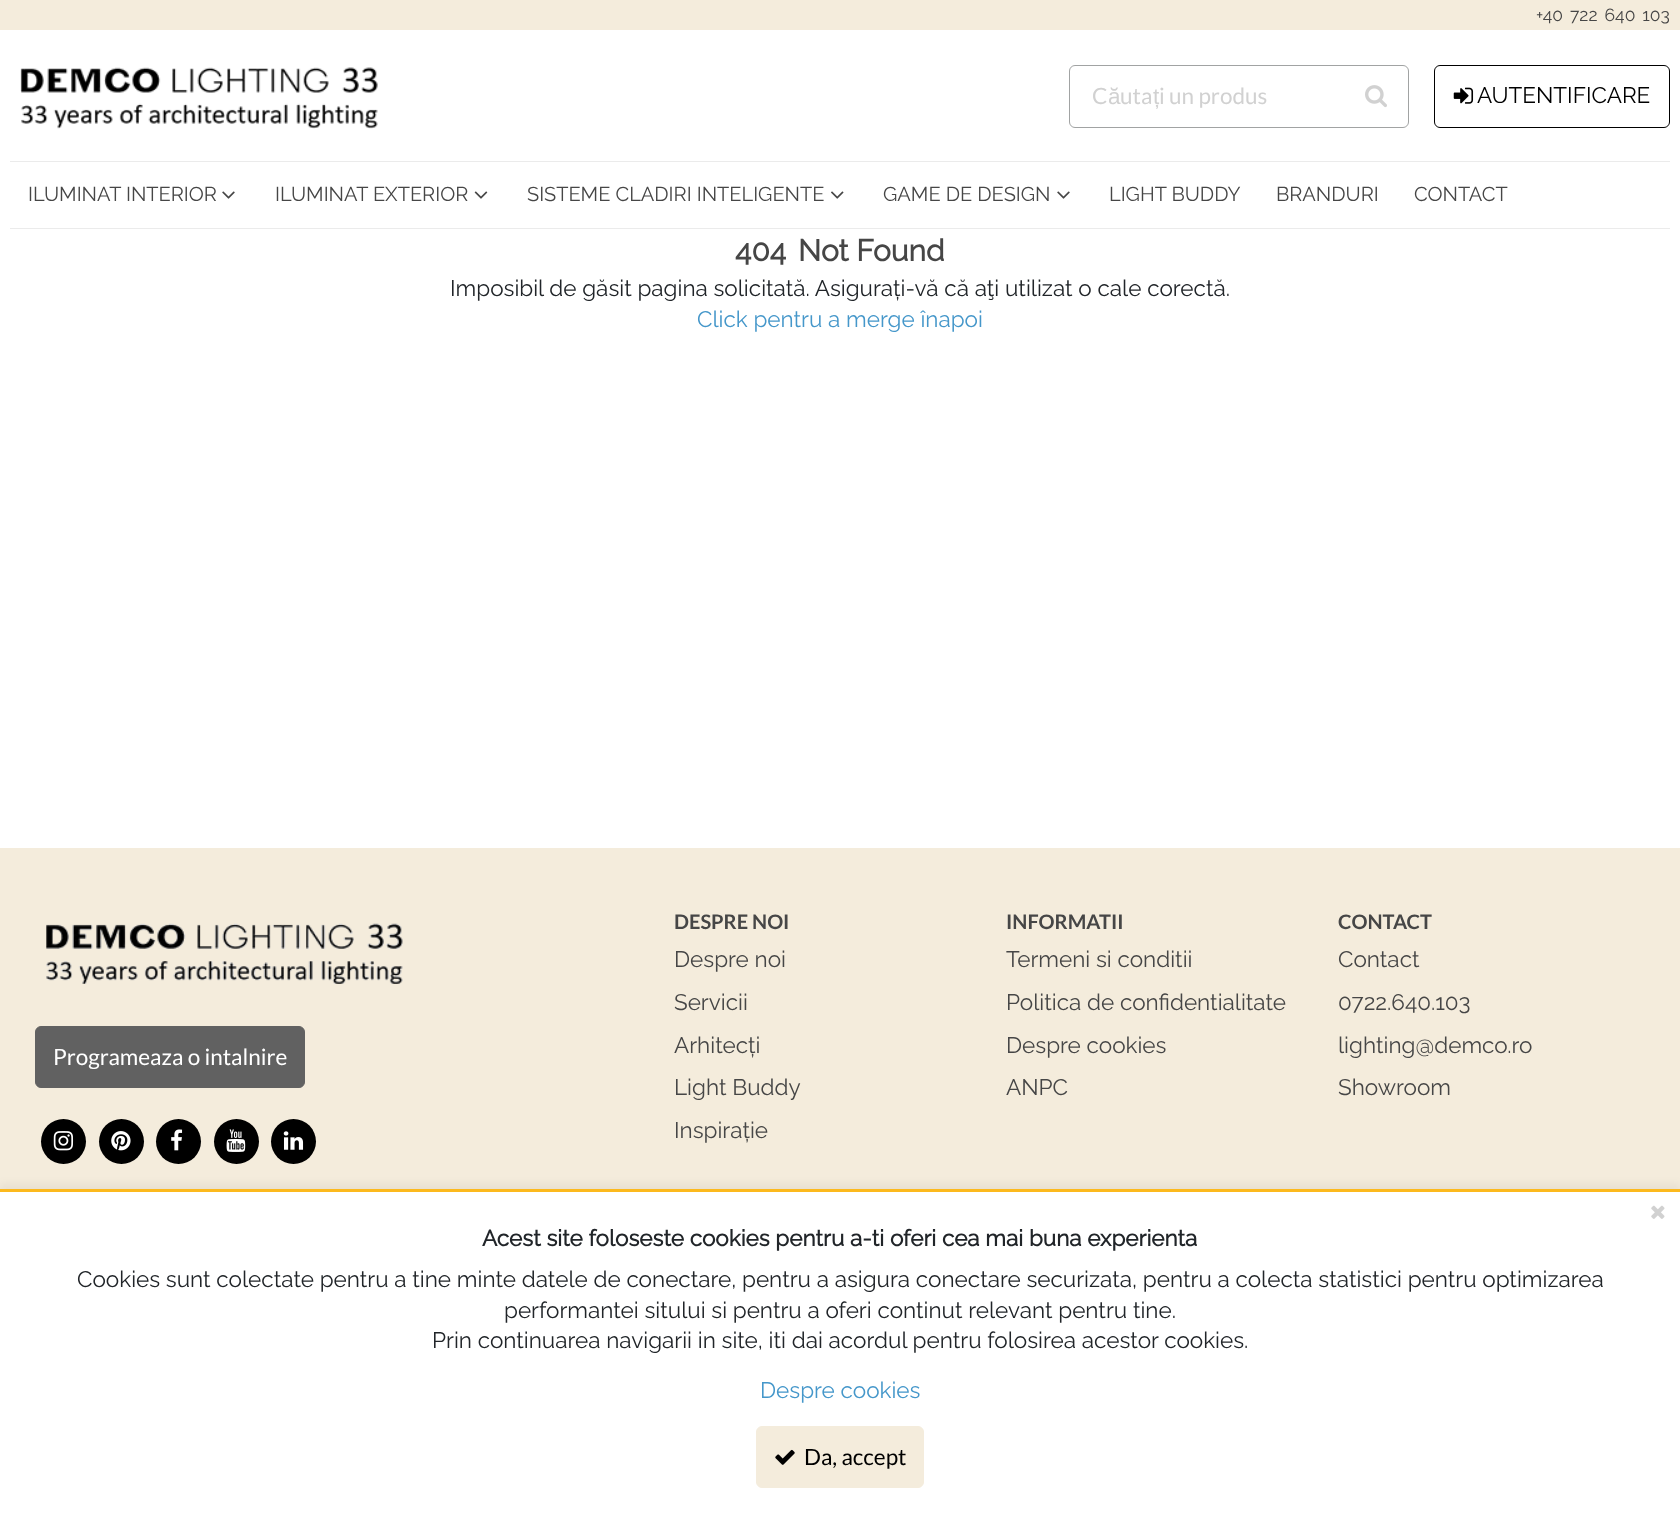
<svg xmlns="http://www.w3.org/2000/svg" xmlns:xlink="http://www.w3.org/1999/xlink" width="1680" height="1517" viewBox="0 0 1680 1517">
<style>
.cls-1{font:17.5px Raleway;fill:#464646}
.cls-2{font:22.5px Lato;fill:#d1d1d1}
.cls-3{font:22.5px Liberation Sans;fill:#d1d1d1}
.cls-4{font:22.5px Raleway;fill:#000000}
.cls-5{font:20px Raleway;fill:#464646}
.cls-6{font:bold 30px Raleway;fill:#464646}
.cls-7{font:22.5px Raleway;fill:#212529}
.cls-8{font:22.5px Raleway;fill:#4597ca}
.cls-9{font:22.5px Lato;fill:#ffffff}
.cls-10{font:bold 20px Lato;fill:#464646}
.cls-11{font:22.5px Raleway;fill:#464646}
.cls-12{font:bold 22.5px Raleway;fill:#212529}
.cls-13{font:22.5px Lato;fill:#000000}
</style>
<rect width="100%" height="100%" fill="#ffffff"/>
<rect fill="#f4ecdc" x="0" y="0" width="1680" height="30"/>
<image xlink:href="image0.png" x="20" y="67" width="358" height="62"/>
<rect fill="none" stroke="#a1a3a3" x="1069.5" y="65.5" width="339" height="62" rx="5.5"/>
<image xlink:href="image1.png" x="1365" y="85" width="22" height="23"/>
<rect fill="none" stroke="#000000" x="1434.5" y="65.5" width="235" height="62" rx="5.5"/>
<image xlink:href="image2.png" x="1453" y="87" width="21" height="17"/>
<rect fill="#ebebeb" x="10" y="161" width="1660" height="1"/>
<rect fill="#ebebeb" x="10" y="228" width="1660" height="1"/>
<image xlink:href="image3.png" x="222" y="191" width="13" height="8"/>
<image xlink:href="image4.png" x="474" y="191" width="14" height="8"/>
<image xlink:href="image5.png" x="831" y="191" width="13" height="8"/>
<image xlink:href="image3.png" x="1057" y="191" width="13" height="8"/>
<rect fill="#f4ecdc" x="0" y="848" width="1680" height="341"/>
<image xlink:href="image6.png" x="46" y="923" width="357" height="61"/>
<rect fill="#616161" stroke="#616161" x="35.5" y="1026.5" width="269" height="61" rx="5.5"/>
<circle fill="#000000" cx="63.5" cy="1141.5" r="22.5"/>
<image xlink:href="image7.png" x="53" y="1131" width="21" height="20"/>
<circle fill="#000000" cx="121.5" cy="1141.5" r="22.5"/>
<image xlink:href="image8.png" x="111" y="1131" width="20" height="20"/>
<circle fill="#000000" cx="178.5" cy="1141.5" r="22.5"/>
<image xlink:href="image9.png" x="171" y="1129" width="12" height="22"/>
<circle fill="#000000" cx="236.5" cy="1141.5" r="22.5"/>
<image xlink:href="image10.png" x="226" y="1129" width="20" height="23"/>
<circle fill="#000000" cx="293.5" cy="1141.5" r="22.5"/>
<image xlink:href="image11.png" x="283" y="1131" width="21" height="19"/>
<rect fill="#000000" fill-opacity="0.05" filter="blur(4.5px)" x="-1" y="1184" width="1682" height="331"/>
<rect fill="#ffffff" x="0" y="1192" width="1680" height="325"/>
<rect fill="#fcb91d" x="0" y="1189" width="1680" height="3"/>
<image xlink:href="image12.png" x="1651" y="1205" width="14" height="14"/>
<rect fill="#f4ecdc" stroke="#f4ecdc" x="756.5" y="1426.5" width="167" height="61" rx="5.5"/>
<image xlink:href="image13.png" x="775" y="1449" width="20" height="16"/>
<text class="cls-1" x="1536" y="21" word-spacing="2.5">+40 722 640 103</text>
<text class="cls-2" x="1092" y="104">C</text>
<text class="cls-3" x="1108" y="104">ă</text>
<text class="cls-2" x="1120" y="104">uta</text>
<text class="cls-3" x="1153" y="104">ț</text>
<text class="cls-2" x="1159" y="104">i un produs</text>
<text class="cls-4" x="1477" y="103">AUTENTIFICARE</text>
<text class="cls-5" x="28" y="201">ILUMINAT INTERIOR</text>
<text class="cls-5" x="275" y="201">ILUMINAT EXTERIOR</text>
<text class="cls-5" x="527" y="201">SISTEME CLADIRI INTELIGENTE</text>
<text class="cls-5" x="883" y="201">GAME DE DESIGN</text>
<text class="cls-5" x="1109" y="201">LIGHT BUDDY</text>
<text class="cls-5" x="1276" y="201">BRANDURI</text>
<text class="cls-5" x="1414" y="201">CONTACT</text>
<text class="cls-6" x="735" y="261">404</text>
<text class="cls-6" x="798" y="261">Not Found</text>
<text class="cls-7" x="450" y="296">Imposibil de găsit pagina solicitată. Asigurați-vă că aţi utilizat o cale corectă.</text>
<text class="cls-8" x="697" y="327">Click pentru a merge înapoi</text>
<text class="cls-9" x="53" y="1065">Programeaza o intalnire</text>
<text class="cls-10" x="674" y="929">DESPRE NOI</text>
<text class="cls-11"><tspan x="674" y="967">Despre noi</tspan><tspan x="674" y="1010">Servicii</tspan><tspan x="674" y="1053">Arhitecți</tspan><tspan x="674" y="1095">Light Buddy</tspan><tspan x="674" y="1138">Inspirație</tspan></text>
<text class="cls-10" x="1006" y="929">INFORMATII</text>
<text class="cls-11"><tspan x="1006" y="967">Termeni si conditii</tspan><tspan x="1006" y="1010">Politica de confidentialitate</tspan><tspan x="1006" y="1053">Despre cookies</tspan><tspan x="1006" y="1095">ANPC</tspan></text>
<text class="cls-10" x="1338" y="929">CONTACT</text>
<text class="cls-11"><tspan x="1338" y="967">Contact</tspan><tspan x="1338" y="1010">0722.640.103</tspan><tspan x="1338" y="1053">lighting@demco.ro</tspan><tspan x="1338" y="1095">Showroom</tspan></text>
<text class="cls-12" x="482" y="1246">Acest site foloseste cookies pentru a-ti oferi cea mai buna experienta</text>
<text class="cls-7" x="77" y="1287">Cookies sunt colectate pentru a tine minte datele de conectare, pentru a asigura conectare securizata, pentru a colecta statistici pentru optimizarea</text>
<text class="cls-7" x="504" y="1318">performantei sitului si pentru a oferi continut relevant pentru tine.</text>
<text class="cls-7" x="432" y="1348">Prin continuarea navigarii in site, iti dai acordul pentru folosirea acestor cookies.</text>
<text class="cls-8" x="760" y="1398">Despre cookies</text>
<text class="cls-13" x="804" y="1465">Da, accept</text>
</svg>
